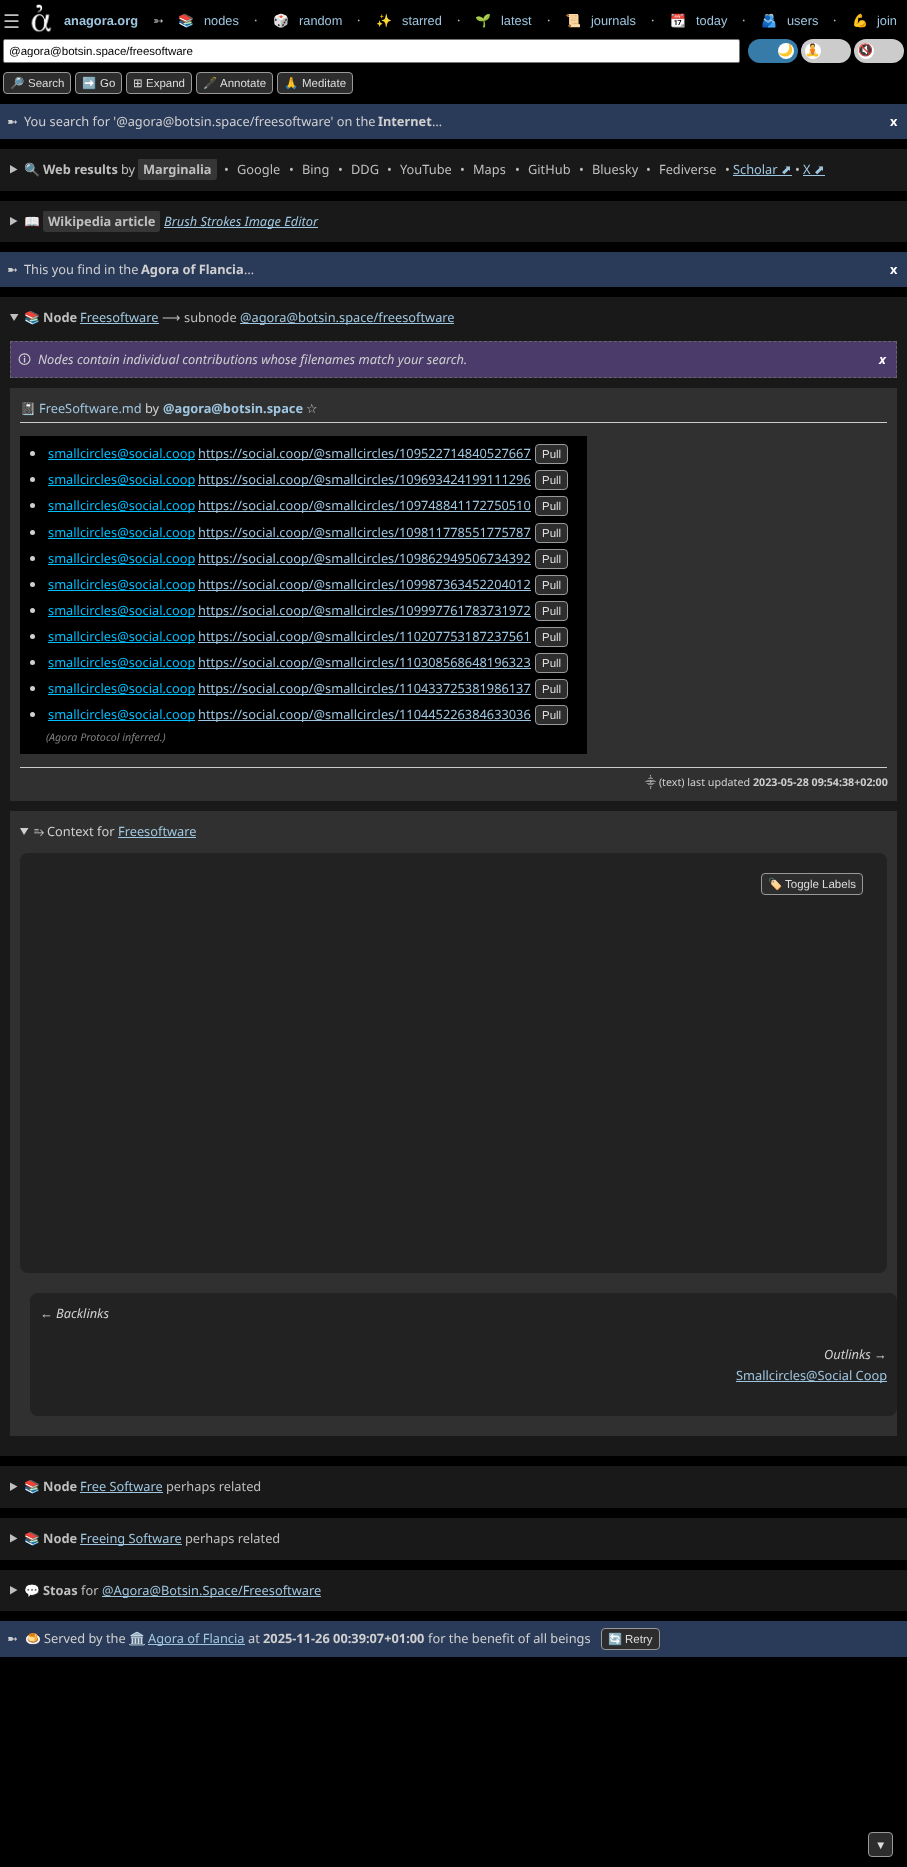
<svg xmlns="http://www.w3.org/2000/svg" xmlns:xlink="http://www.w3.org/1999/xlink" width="907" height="1867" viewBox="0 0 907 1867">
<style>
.cls-1{font:19px DejaVu Sans;fill:#bfbfbf}
.cls-2{font:bold 12.8px Liberation Sans;fill:#9fc6e0}
.cls-3{font:12.8px DejaVu Sans;fill:#bfbfbf}
.cls-4{font:12.8px Noto Color Emoji;fill:#9fc6e0}
.cls-5{font:12.8px Liberation Sans;fill:#9fc6e0}
.cls-6{font:12.8px Noto Sans;fill:#bfbfbf}
.cls-7{font:11.5px Liberation Sans;fill:#000000}
.cls-8{font:12px Noto Color Emoji;fill:#bfbfbf}
.cls-9{font:11.5px Noto Color Emoji;fill:#dddddd}
.cls-10{font:11.5px Liberation Sans;fill:#dddddd}
.cls-11{font:11.5px DejaVu Sans;fill:#dddddd}
.cls-12{font:12.8px DejaVu Sans;fill:#cfcfcf}
.cls-13{font:12.8px Noto Sans;fill:#cfcfcf}
.cls-14{font:bold 12.8px Noto Sans;fill:#cfcfcf}
.cls-15{font:bold 12.8px Noto Sans;fill:#ffffff}
.cls-16{font:bold 12.8px Noto Color Emoji;fill:#bfbfbf}
.cls-17{font:bold 12.8px Noto Sans;fill:#bfbfbf}
.cls-18{font:12.8px Noto Sans;fill:#9fc6e0}
.cls-19{font:12.8px DejaVu Sans;fill:#9fc6e0}
.cls-20{font:italic 12.8px Noto Sans;fill:#9fc6e0}
.cls-21{font:12.8px 'Noto Sans Symbols 2';fill:#cfcfcf}
.cls-22{font:italic 12.8px Noto Sans;fill:#cfcfcf}
.cls-23{font:italic bold 12.8px Noto Sans;fill:#ffffff}
.cls-24{font:bold 12.8px Noto Sans;fill:#9fc6e0}
.cls-25{font:12.8px Noto Sans;fill:#00bfff}
.cls-26{font:italic 10.7px Noto Sans;fill:#808080}
.cls-27{font:10.7px Noto Sans;fill:#cfcfcf}
.cls-28{font:bold 10.7px Noto Sans;fill:#cfcfcf}
.cls-29{font:12.8px FreeSans;fill:#cfcfcf}
.cls-30{font:italic 12.8px Liberation Sans;fill:#cfcfcf}
.cls-31{font:12.8px Noto Color Emoji;fill:#cfcfcf}
</style>
<defs>
<clipPath id="clip1"><rect x="10" y="159" width="887" height="22"/></clipPath>
<clipPath id="clip2"><rect x="10" y="211" width="887" height="21"/></clipPath>
<clipPath id="clip3"><rect x="9" y="45" width="725" height="12"/></clipPath>
</defs>
<rect width="100%" height="100%" fill="#000000"/>
<image xlink:href="image0.png" x="31" y="4" width="21" height="29"/>
<rect fill="#ffffff" stroke="#767676" x="3.5" y="39.5" width="736" height="23" rx="1.5"/>
<rect fill="#377ba8" x="748" y="39" width="50" height="24" rx="12"/>
<circle fill="#ffffff" cx="786" cy="51" r="8"/>
<rect fill="#cccccc" x="801" y="39" width="50" height="24" rx="12"/>
<circle fill="#ffffff" cx="813" cy="51" r="8"/>
<rect fill="none" stroke="#767676" x="858.5" y="42.5" width="12" height="12" rx="1.5"/>
<rect fill="#cccccc" x="854" y="39" width="50" height="24" rx="12"/>
<circle fill="#ffffff" cx="866" cy="51" r="8"/>
<rect fill="#2d2d2d" stroke="#999999" x="3.5" y="72.5" width="67" height="21" rx="3.5"/>
<rect fill="#2d2d2d" stroke="#999999" x="75.5" y="72.5" width="46" height="21" rx="3.5"/>
<rect fill="#2d2d2d" stroke="#999999" x="126.5" y="72.5" width="65" height="21" rx="3.5"/>
<rect fill="#2d2d2d" stroke="#999999" x="196.5" y="72.5" width="76" height="21" rx="3.5"/>
<rect fill="#2d2d2d" stroke="#999999" x="277.5" y="72.5" width="75" height="21" rx="3.5"/>
<rect fill="#2a3a59" x="0" y="104" width="907" height="35"/>
<rect fill="#191919" x="0" y="149" width="907" height="42"/>
<path fill="#bfbfbf" d="M10 165L17.5 169.5L10 173.5Z"/>
<g clip-path="url(#clip1)">
<rect fill="#363636" x="138" y="158" width="79" height="22" rx="3"/>
</g>
<rect fill="#9fc6e0" x="733" y="175" width="59" height="1"/>
<rect fill="#9fc6e0" x="803" y="175" width="22" height="1"/>
<rect fill="#191919" x="0" y="201" width="907" height="41"/>
<path fill="#bfbfbf" d="M10 217L17.5 221L10 225.5Z"/>
<g clip-path="url(#clip2)">
<rect fill="#363636" x="43" y="210" width="117" height="22" rx="3"/>
</g>
<rect fill="#9fc6e0" x="164" y="227" width="154" height="1"/>
<rect fill="#2a3a59" x="0" y="252" width="907" height="35"/>
<rect fill="#191919" x="0" y="297" width="907" height="1159"/>
<path fill="#bfbfbf" d="M10 314H18.5L14 321Z"/>
<rect fill="#9fc6e0" x="80" y="323" width="79" height="1"/>
<rect fill="#9fc6e0" x="240" y="323" width="214" height="1"/>
<rect fill="#4a3b6a" x="10" y="341" width="887" height="37"/>
<path fill="none" stroke="#666666" stroke-dasharray="3 1.99" d="M10 341.5H897"/>
<path fill="none" stroke="#666666" stroke-dasharray="3 1.86" d="M896.5 341V378"/>
<path fill="none" stroke="#666666" stroke-dasharray="3 1.99" d="M10 377.5H897"/>
<path fill="none" stroke="#666666" stroke-dasharray="3 1.86" d="M10.5 341V378"/>
<rect fill="#303030" x="10" y="388" width="887" height="413"/>
<rect fill="#cccccc" x="20" y="422" width="867" height="1"/>
<rect fill="#000000" x="20" y="436" width="567" height="318"/>
<circle fill="#cfcfcf" cx="32.5" cy="453.5" r="2.5"/>
<rect fill="#00bfff" x="48" y="459" width="147" height="1"/>
<rect fill="#9fc6e0" x="198" y="459" width="333" height="1"/>
<rect fill="#2d2d2d" stroke="#999999" x="535.5" y="444.5" width="32" height="19" rx="3.5"/>
<circle fill="#cfcfcf" cx="32.5" cy="479.5" r="2.5"/>
<rect fill="#00bfff" x="48" y="485" width="147" height="1"/>
<rect fill="#9fc6e0" x="198" y="485" width="333" height="1"/>
<rect fill="#2d2d2d" stroke="#999999" x="535.5" y="470.5" width="32" height="19" rx="3.5"/>
<circle fill="#cfcfcf" cx="32.5" cy="505.5" r="2.5"/>
<rect fill="#00bfff" x="48" y="511" width="147" height="1"/>
<rect fill="#9fc6e0" x="198" y="511" width="333" height="1"/>
<rect fill="#2d2d2d" stroke="#999999" x="535.5" y="496.5" width="32" height="19" rx="3.5"/>
<circle fill="#cfcfcf" cx="32.5" cy="532.5" r="2.5"/>
<rect fill="#00bfff" x="48" y="538" width="147" height="1"/>
<rect fill="#9fc6e0" x="198" y="538" width="333" height="1"/>
<rect fill="#2d2d2d" stroke="#999999" x="535.5" y="523.5" width="32" height="19" rx="3.5"/>
<circle fill="#cfcfcf" cx="32.5" cy="558.5" r="2.5"/>
<rect fill="#00bfff" x="48" y="564" width="147" height="1"/>
<rect fill="#9fc6e0" x="198" y="564" width="333" height="1"/>
<rect fill="#2d2d2d" stroke="#999999" x="535.5" y="549.5" width="32" height="19" rx="3.5"/>
<circle fill="#cfcfcf" cx="32.5" cy="584.5" r="2.5"/>
<rect fill="#00bfff" x="48" y="590" width="147" height="1"/>
<rect fill="#9fc6e0" x="198" y="590" width="333" height="1"/>
<rect fill="#2d2d2d" stroke="#999999" x="535.5" y="575.5" width="32" height="19" rx="3.5"/>
<circle fill="#cfcfcf" cx="32.5" cy="610.5" r="2.5"/>
<rect fill="#00bfff" x="48" y="616" width="147" height="1"/>
<rect fill="#9fc6e0" x="198" y="616" width="333" height="1"/>
<rect fill="#2d2d2d" stroke="#999999" x="535.5" y="601.5" width="32" height="19" rx="3.5"/>
<circle fill="#cfcfcf" cx="32.5" cy="636.5" r="2.5"/>
<rect fill="#00bfff" x="48" y="642" width="147" height="1"/>
<rect fill="#9fc6e0" x="198" y="642" width="333" height="1"/>
<rect fill="#2d2d2d" stroke="#999999" x="535.5" y="627.5" width="32" height="19" rx="3.5"/>
<circle fill="#cfcfcf" cx="32.5" cy="662.5" r="2.5"/>
<rect fill="#00bfff" x="48" y="668" width="147" height="1"/>
<rect fill="#9fc6e0" x="198" y="668" width="333" height="1"/>
<rect fill="#2d2d2d" stroke="#999999" x="535.5" y="653.5" width="32" height="19" rx="3.5"/>
<circle fill="#cfcfcf" cx="32.5" cy="688.5" r="2.5"/>
<rect fill="#00bfff" x="48" y="694" width="147" height="1"/>
<rect fill="#9fc6e0" x="198" y="694" width="333" height="1"/>
<rect fill="#2d2d2d" stroke="#999999" x="535.5" y="679.5" width="32" height="19" rx="3.5"/>
<circle fill="#cfcfcf" cx="32.5" cy="714.5" r="2.5"/>
<rect fill="#00bfff" x="48" y="720" width="147" height="1"/>
<rect fill="#9fc6e0" x="198" y="720" width="333" height="1"/>
<rect fill="#2d2d2d" stroke="#999999" x="535.5" y="705.5" width="32" height="19" rx="3.5"/>
<rect fill="#cccccc" x="20" y="767" width="867" height="1"/>
<rect fill="#303030" x="10" y="811" width="887" height="625"/>
<path fill="#cfcfcf" d="M20 828H28.5L24 835Z"/>
<rect fill="#9fc6e0" x="118" y="837" width="78" height="1"/>
<rect fill="#222222" x="20" y="853" width="867" height="420" rx="8"/>
<rect fill="#2d2d2d" stroke="#999999" x="761.5" y="873.5" width="101" height="21" rx="3.5"/>
<rect fill="#222222" x="30" y="1293" width="867" height="123" rx="8"/>
<rect fill="#9fc6e0" x="736" y="1381" width="151" height="1"/>
<rect fill="#191919" x="0" y="1466" width="907" height="42"/>
<path fill="#bfbfbf" d="M10 1482.5L17.5 1486.5L10 1491Z"/>
<rect fill="#9fc6e0" x="80" y="1492" width="83" height="1"/>
<rect fill="#191919" x="0" y="1518" width="907" height="42"/>
<path fill="#bfbfbf" d="M10 1534L17.5 1538.5L10 1542.5Z"/>
<rect fill="#9fc6e0" x="80" y="1544" width="102" height="1"/>
<rect fill="#191919" x="0" y="1570" width="907" height="41"/>
<path fill="#bfbfbf" d="M10 1586L17.5 1590L10 1594.5Z"/>
<rect fill="#9fc6e0" x="102" y="1596" width="219" height="1"/>
<rect fill="#2a3a59" x="0" y="1621" width="907" height="36"/>
<rect fill="#9fc6e0" x="129" y="1644" width="16" height="1"/>
<rect fill="#9fc6e0" x="148" y="1644" width="97" height="1"/>
<rect fill="#2d2d2d" stroke="#999999" x="601.5" y="1628.5" width="58" height="21" rx="3.5"/>
<rect fill="#2d2d2d" stroke="#999999" x="868.5" y="1832.5" width="24" height="24" rx="3.5"/>
<text class="cls-1" x="3" y="28">☰</text>
<text class="cls-2" x="64" y="25">anagora.org</text>
<text class="cls-3" x="153" y="25">➳</text>
<text class="cls-4" x="178" y="25">📚</text>
<text class="cls-5" x="204" y="25">nodes</text>
<text class="cls-6" x="254" y="25">⸱</text>
<text class="cls-4" x="273" y="25">🎲️</text>
<text class="cls-5" x="299" y="25">random</text>
<text class="cls-6" x="357" y="25">⸱</text>
<text class="cls-4" x="376" y="25">✨</text>
<text class="cls-5" x="402" y="25">starred</text>
<text class="cls-6" x="457" y="25">⸱</text>
<text class="cls-4" x="475" y="25">🌱</text>
<text class="cls-5" x="501" y="25">latest</text>
<text class="cls-6" x="547" y="25">⸱</text>
<text class="cls-4" x="565" y="25">📜</text>
<text class="cls-5" x="591" y="25">journals</text>
<text class="cls-6" x="651" y="25">⸱</text>
<text class="cls-4" x="670" y="25">📆</text>
<text class="cls-5" x="696" y="25">today</text>
<text class="cls-6" x="742" y="25">⸱</text>
<text class="cls-4" x="761" y="25">🫂</text>
<text class="cls-5" x="787" y="25">users</text>
<text class="cls-6" x="833" y="25">⸱</text>
<text class="cls-4" x="852" y="25">💪</text>
<text class="cls-5" x="877" y="25">join</text>
<g clip-path="url(#clip3)">
<text class="cls-7" x="9" y="55">@agora@botsin.space/freesoftware</text>
</g>
<text class="cls-8" x="778" y="54">🌙</text>
<text class="cls-8" x="805" y="54">🧘</text>
<text class="cls-8" x="858" y="54">🔇</text>
<text class="cls-9" x="10" y="87">🔎</text>
<text class="cls-10" x="28" y="87">Search</text>
<text class="cls-9" x="82" y="87">➡️</text>
<text class="cls-10" x="100" y="87">Go</text>
<text class="cls-11" x="133" y="87">⊞</text>
<text class="cls-10" x="146" y="87">Expand</text>
<text class="cls-9" x="203" y="87">🖋️</text>
<text class="cls-10" x="220" y="87">Annotate</text>
<text class="cls-9" x="284" y="87">🙏</text>
<text class="cls-10" x="302" y="87">Meditate</text>
<text class="cls-12" x="7" y="126">➼</text>
<text class="cls-13" x="24" y="126">You search for '@agora@botsin.space/freesoftware' on the</text>
<text class="cls-14" x="378" y="126">Internet</text>
<text class="cls-13" x="432" y="126">…</text>
<text class="cls-15" x="890" y="126">x</text>
<text class="cls-16" x="24" y="174">🔍</text>
<text class="cls-17" x="43" y="174">Web results</text>
<text class="cls-6" x="121" y="174">by</text>
<text class="cls-17" x="143" y="174">Marginalia</text>
<text class="cls-6" x="224" y="174">•</text>
<text class="cls-6" x="237" y="174">Google</text>
<text class="cls-6" x="289" y="174">•</text>
<text class="cls-6" x="302" y="174">Bing</text>
<text class="cls-6" x="338" y="174">•</text>
<text class="cls-6" x="351" y="174">DDG</text>
<text class="cls-6" x="387" y="174">•</text>
<text class="cls-6" x="400" y="174">YouTube</text>
<text class="cls-6" x="460" y="174">•</text>
<text class="cls-6" x="473" y="174">Maps</text>
<text class="cls-6" x="515" y="174">•</text>
<text class="cls-6" x="528" y="174">GitHub</text>
<text class="cls-6" x="579" y="174">•</text>
<text class="cls-6" x="592" y="174">Bluesky</text>
<text class="cls-6" x="646" y="174">•</text>
<text class="cls-6" x="659" y="174">Fediverse</text>
<text class="cls-6" x="725" y="174">•</text>
<text class="cls-18" x="733" y="174">Scholar</text>
<text class="cls-19" x="781" y="174">⬈</text>
<text class="cls-6" x="795" y="174">•</text>
<text class="cls-18" x="803" y="174">X</text>
<text class="cls-19" x="814" y="174">⬈</text>
<text class="cls-16" x="24" y="226">📖</text>
<text class="cls-17" x="48" y="226">Wikipedia article</text>
<text class="cls-20" x="164" y="226">Brush Strokes Image Editor</text>
<text class="cls-12" x="7" y="274">➼</text>
<text class="cls-13" x="24" y="274">This you find in the</text>
<text class="cls-14" x="141" y="274">Agora of Flancia</text>
<text class="cls-13" x="244" y="274">…</text>
<text class="cls-15" x="890" y="274">x</text>
<text class="cls-16" x="24" y="322">📚</text>
<text class="cls-17" x="43" y="322">Node</text>
<text class="cls-18" x="80" y="322">Freesoftware</text>
<text class="cls-3" x="162" y="322">⟶</text>
<text class="cls-6" x="184" y="322">subnode</text>
<text class="cls-18" x="240" y="322">@agora@botsin.space/freesoftware</text>
<text class="cls-21" x="18" y="364">🛈</text>
<text class="cls-22" x="38" y="364">Nodes contain individual contributions whose filenames match your search.</text>
<text class="cls-23" x="879" y="364">x</text>
<text class="cls-4" x="20" y="413">📓</text>
<text class="cls-18" x="39" y="413">FreeSoftware.md</text>
<text class="cls-13" x="145" y="413">by</text>
<text class="cls-24" x="163" y="413">@agora@botsin.space</text>
<text class="cls-12" x="306" y="413">☆</text>
<text class="cls-25" x="48" y="458">smallcircles@social.coop</text>
<text class="cls-18" x="198" y="458">https://social.coop/@smallcircles/109522714840527667</text>
<text class="cls-10" x="542" y="458">Pull</text>
<text class="cls-25" x="48" y="484">smallcircles@social.coop</text>
<text class="cls-18" x="198" y="484">https://social.coop/@smallcircles/109693424199111296</text>
<text class="cls-10" x="542" y="484">Pull</text>
<text class="cls-25" x="48" y="510">smallcircles@social.coop</text>
<text class="cls-18" x="198" y="510">https://social.coop/@smallcircles/109748841172750510</text>
<text class="cls-10" x="542" y="510">Pull</text>
<text class="cls-25" x="48" y="537">smallcircles@social.coop</text>
<text class="cls-18" x="198" y="537">https://social.coop/@smallcircles/109811778551775787</text>
<text class="cls-10" x="542" y="537">Pull</text>
<text class="cls-25" x="48" y="563">smallcircles@social.coop</text>
<text class="cls-18" x="198" y="563">https://social.coop/@smallcircles/109862949506734392</text>
<text class="cls-10" x="542" y="563">Pull</text>
<text class="cls-25" x="48" y="589">smallcircles@social.coop</text>
<text class="cls-18" x="198" y="589">https://social.coop/@smallcircles/109987363452204012</text>
<text class="cls-10" x="542" y="589">Pull</text>
<text class="cls-25" x="48" y="615">smallcircles@social.coop</text>
<text class="cls-18" x="198" y="615">https://social.coop/@smallcircles/109997761783731972</text>
<text class="cls-10" x="542" y="615">Pull</text>
<text class="cls-25" x="48" y="641">smallcircles@social.coop</text>
<text class="cls-18" x="198" y="641">https://social.coop/@smallcircles/110207753187237561</text>
<text class="cls-10" x="542" y="641">Pull</text>
<text class="cls-25" x="48" y="667">smallcircles@social.coop</text>
<text class="cls-18" x="198" y="667">https://social.coop/@smallcircles/110308568648196323</text>
<text class="cls-10" x="542" y="667">Pull</text>
<text class="cls-25" x="48" y="693">smallcircles@social.coop</text>
<text class="cls-18" x="198" y="693">https://social.coop/@smallcircles/110433725381986137</text>
<text class="cls-10" x="542" y="693">Pull</text>
<text class="cls-25" x="48" y="719">smallcircles@social.coop</text>
<text class="cls-18" x="198" y="719">https://social.coop/@smallcircles/110445226384633036</text>
<text class="cls-10" x="542" y="719">Pull</text>
<text class="cls-26" x="46" y="741">(Agora Protocol inferred.)</text>
<text class="cls-27" x="645" y="786">⸎ (text) last updated</text>
<text class="cls-28" x="753" y="786">2023-05-28 09:54:38+02:00</text>
<text class="cls-29" x="34" y="836">⥱</text>
<text class="cls-13" x="47" y="836">Context for</text>
<text class="cls-18" x="118" y="836">Freesoftware</text>
<text class="cls-9" x="768" y="888">🏷️</text>
<text class="cls-10" x="785" y="888">Toggle Labels</text>
<text class="cls-30" x="40" y="1318">←</text>
<text class="cls-22" x="56" y="1318">Backlinks</text>
<text class="cls-22" x="824" y="1359">Outlinks</text>
<text class="cls-30" x="874" y="1359">→</text>
<text class="cls-18" x="736" y="1380">Smallcircles@Social Coop</text>
<text class="cls-16" x="24" y="1491">📚</text>
<text class="cls-17" x="43" y="1491">Node</text>
<text class="cls-18" x="80" y="1491">Free Software</text>
<text class="cls-6" x="166" y="1491">perhaps related</text>
<text class="cls-16" x="24" y="1543">📚</text>
<text class="cls-17" x="43" y="1543">Node</text>
<text class="cls-18" x="80" y="1543">Freeing Software</text>
<text class="cls-6" x="185" y="1543">perhaps related</text>
<text class="cls-16" x="24" y="1595">💬</text>
<text class="cls-17" x="43" y="1595">Stoas</text>
<text class="cls-6" x="81" y="1595">for</text>
<text class="cls-18" x="102" y="1595">@Agora@Botsin.Space/Freesoftware</text>
<text class="cls-12" x="7" y="1643">➼</text>
<text class="cls-31" x="25" y="1643">🍮</text>
<text class="cls-13" x="44" y="1643">Served by the</text>
<text class="cls-4" x="129" y="1643">🏛️</text>
<text class="cls-18" x="148" y="1643">Agora of Flancia</text>
<text class="cls-13" x="248" y="1643">at</text>
<text class="cls-14" x="263" y="1643">2025-11-26 00:39:07+01:00</text>
<text class="cls-13" x="428" y="1643">for the benefit of all beings</text>
<text class="cls-9" x="608" y="1643">🔄</text>
<text class="cls-10" x="625" y="1643">Retry</text>
<text class="cls-10" x="875" y="1849">▼</text>
</svg>
